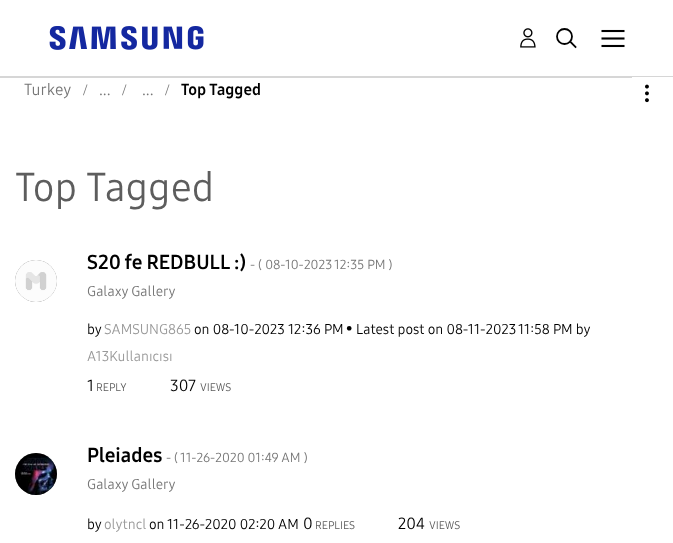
<svg xmlns="http://www.w3.org/2000/svg" xmlns:xlink="http://www.w3.org/1999/xlink" width="673" height="543" viewBox="0 0 673 543">
<style>
.cls-1{font:16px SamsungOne;fill:#767676}
.cls-2{font:16px Liberation Serif;fill:#767676}
.cls-3{font:bold 16px SamsungOne;fill:#000000}
.cls-4{font:40px SamsungOne;fill:#5d5d5d}
.cls-5{font:bold 20px SamsungOne;fill:#000000}
.cls-6{font:13px SamsungOne;fill:#767676}
.cls-7{font:14px SamsungOne;fill:#767676}
.cls-8{font:14px SamsungOne;fill:#000000}
.cls-9{font:14px SamsungOne;fill:#999999}
.cls-10{font:16px SamsungOne;fill:#000000}
.cls-11{font:11px SamsungOne;fill:#5d5d5d}
</style>
<rect width="100%" height="100%" fill="#ffffff"/>
<rect fill="#d6d6d6" x="0" y="76" width="673" height="1"/>
<image xlink:href="image0.png" x="49" y="26" width="155" height="24"/>
<image xlink:href="image1.png" x="520" y="28" width="16" height="20"/>
<circle fill="none" stroke="#000000" stroke-width="1.8" cx="564.5" cy="36.5" r="7.5"/>
<path fill="none" stroke="#000000" stroke-width="1.8" stroke-linecap="square" d="M571 42.5L575.5 47"/>
<image xlink:href="image2.png" x="601" y="29" width="24" height="19"/>
<rect fill="#d6d6d6" x="0" y="77" width="632" height="1"/>
<image xlink:href="image3.png" x="645" y="84" width="4" height="19"/>
<rect fill="#999999" filter="blur(0.5px)" x="15" y="260" width="42" height="42" rx="21"/>
<image xlink:href="image4.png" x="15" y="260" width="42" height="42"/>
<rect fill="#999999" filter="blur(0.5px)" x="15" y="453" width="42" height="42" rx="21"/>
<image xlink:href="image5.png" x="15" y="453" width="42" height="42"/>
<text class="cls-1" x="24" y="95">Turkey</text>
<text class="cls-2" x="83" y="95">/</text>
<text class="cls-1" x="99" y="95">...</text>
<text class="cls-2" x="122" y="95">/</text>
<text class="cls-1" x="142" y="95">...</text>
<text class="cls-2" x="165" y="95">/</text>
<text class="cls-3" x="181" y="95">Top Tagged</text>
<text class="cls-4" x="15" y="201">Top Tagged</text>
<text class="cls-5" x="87" y="269">S20 fe REDBULL :)</text>
<text class="cls-6" x="250" y="269">- ( 08-10-2023</text>
<text class="cls-6" x="334" y="269">12:35 PM )</text>
<text class="cls-7" x="87" y="296">Galaxy Gallery</text>
<text class="cls-8" x="87" y="334">by</text>
<text class="cls-9" x="104" y="334">SAMSUNG865</text>
<text class="cls-8" x="194" y="334">on 08-10-2023</text>
<text class="cls-8" x="288" y="334">12:36 PM</text>
<text class="cls-8" x="346" y="333">•</text>
<text class="cls-8" x="356" y="334">Latest post on 08-11-2023</text>
<text class="cls-8" x="518" y="334">11:58 PM by</text>
<text class="cls-9" x="87" y="361">A13Kullanıcısı</text>
<text class="cls-10" x="87" y="391">1</text>
<text class="cls-11" x="96" y="391">REPLY</text>
<text class="cls-10" x="170" y="391">307</text>
<text class="cls-11" x="200" y="391">VIEWS</text>
<text class="cls-5" x="87" y="462">Pleiades</text>
<text class="cls-6" x="166" y="462">- (</text>
<text class="cls-6" x="180" y="462">11-26-2020 01:49 AM )</text>
<text class="cls-7" x="87" y="489">Galaxy Gallery</text>
<text class="cls-8" x="87" y="529">by</text>
<text class="cls-9" x="104" y="529">olytncl</text>
<text class="cls-8" x="149" y="529">on</text>
<text class="cls-8" x="167" y="529">11-26-2020 02:20 AM</text>
<text class="cls-10" x="303" y="529">0</text>
<text class="cls-11" x="315" y="529">REPLIES</text>
<text class="cls-10" x="398" y="529">204</text>
<text class="cls-11" x="429" y="529">VIEWS</text>
</svg>
